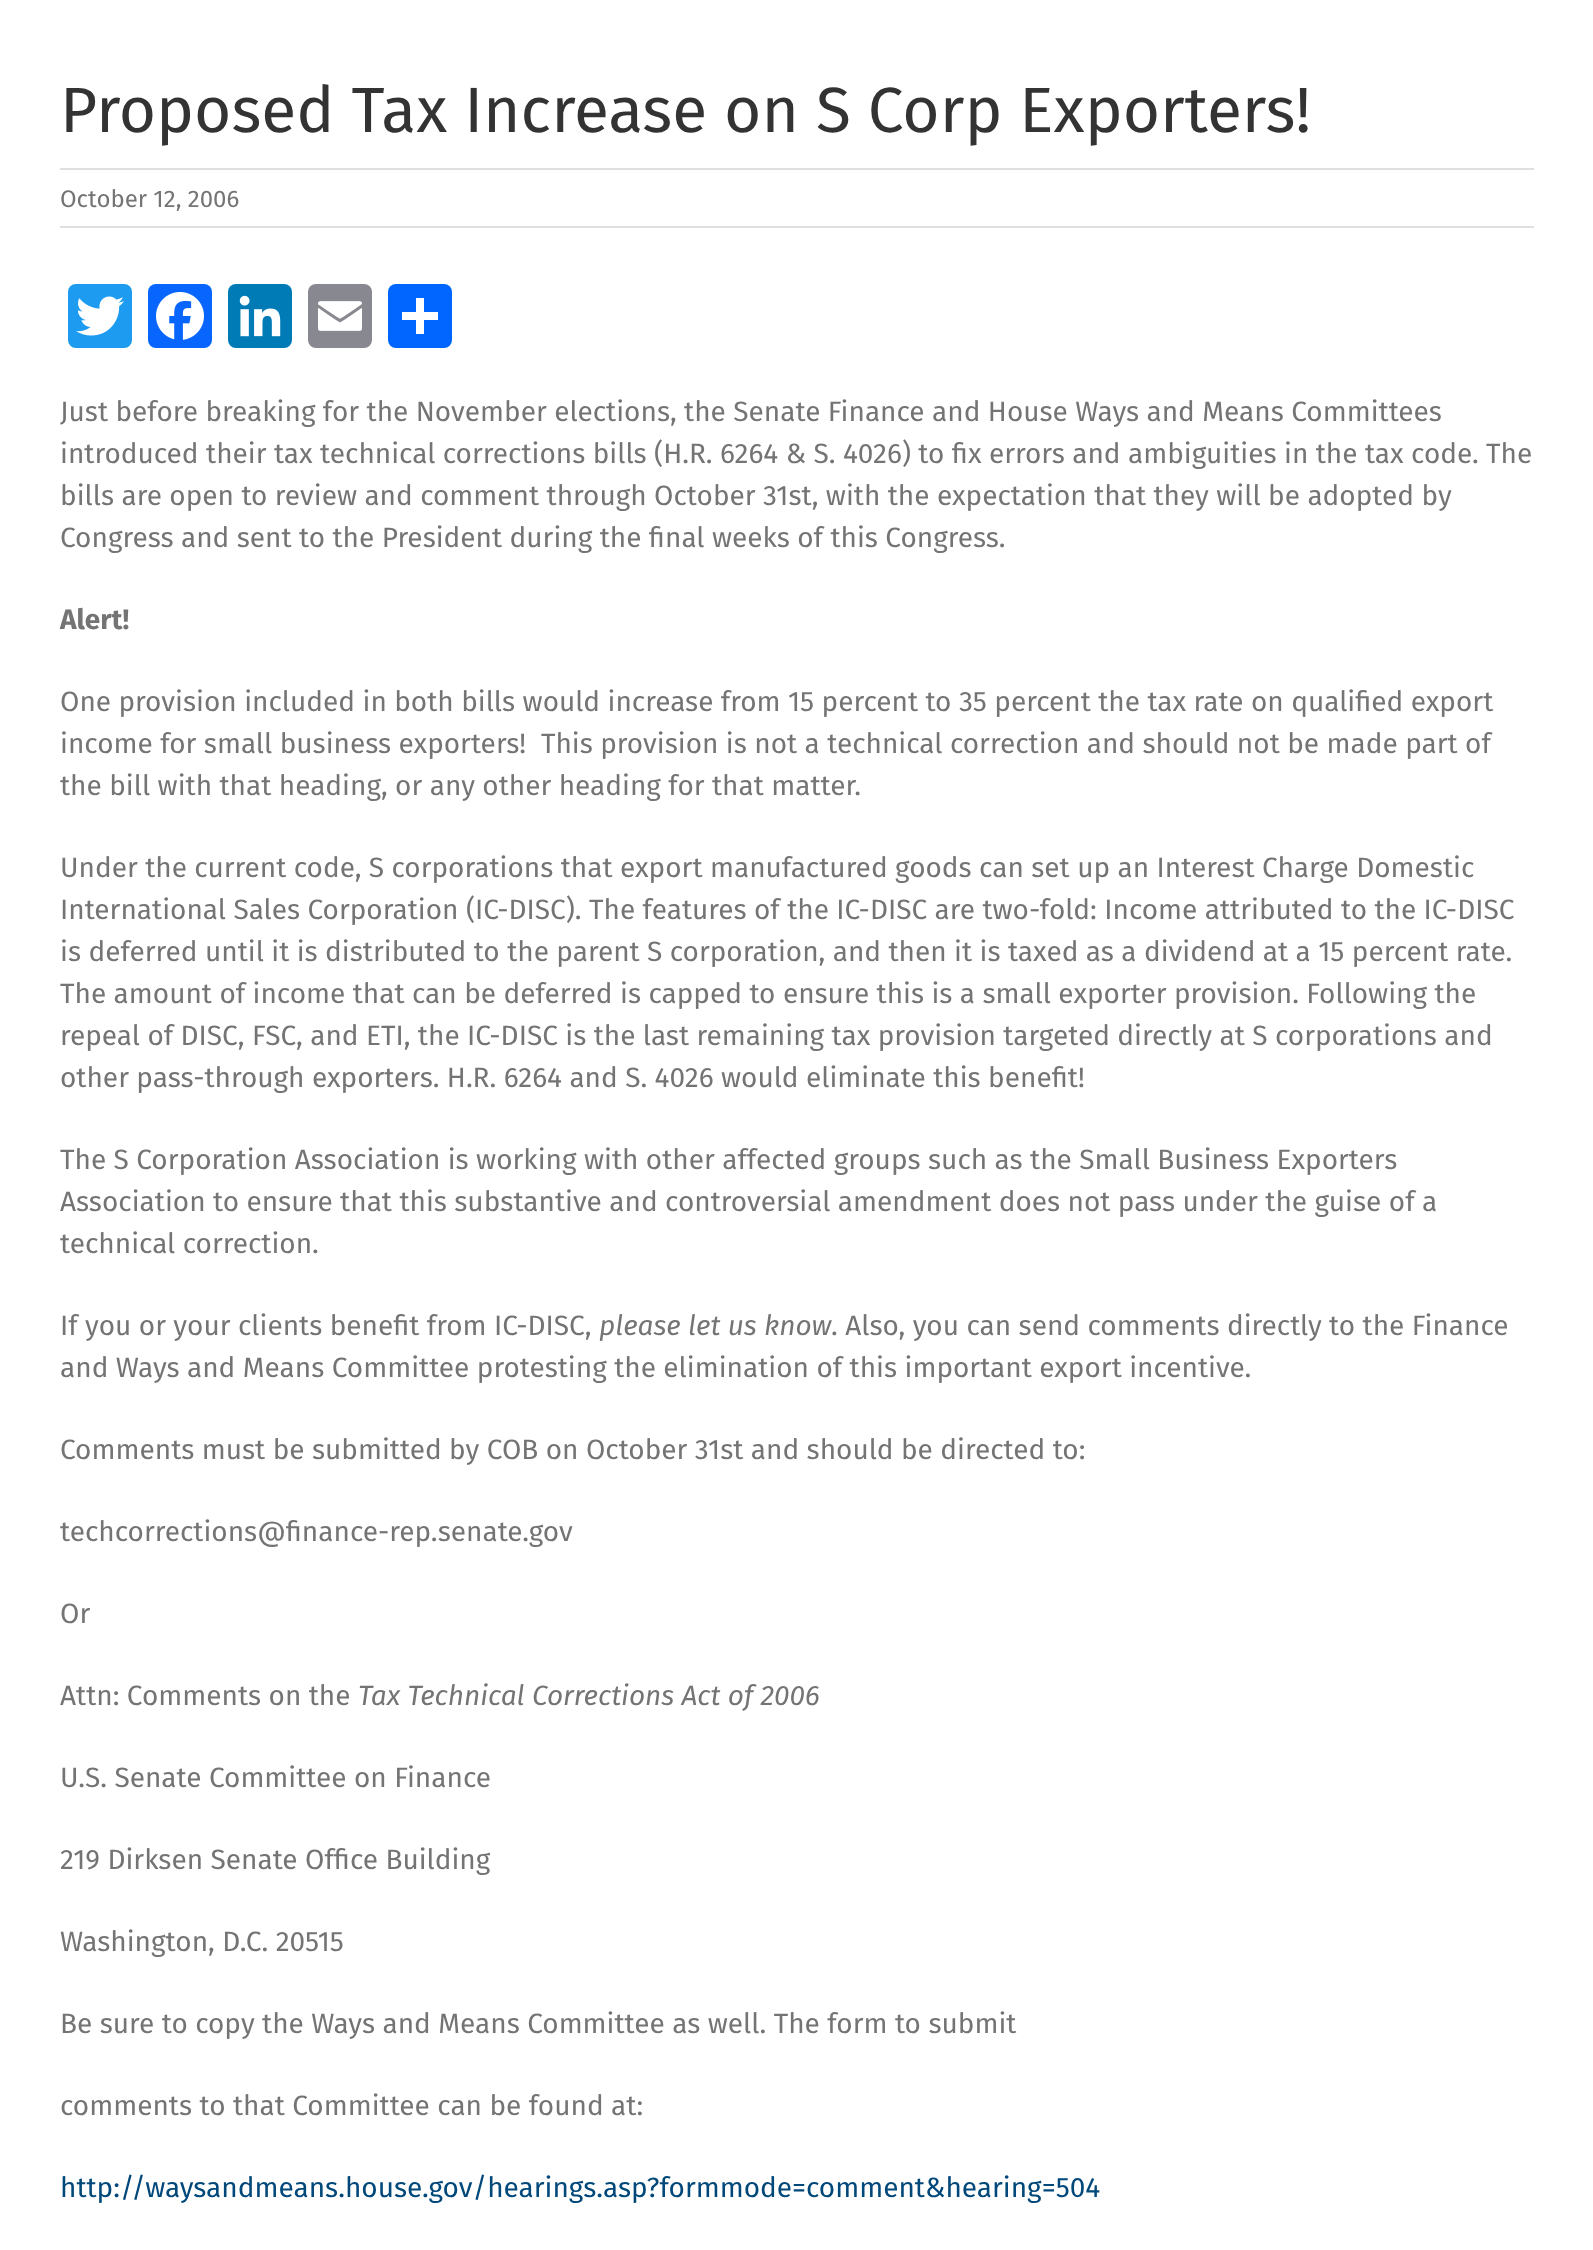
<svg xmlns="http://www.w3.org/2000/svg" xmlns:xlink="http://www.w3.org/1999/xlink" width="1593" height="2250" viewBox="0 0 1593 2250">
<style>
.cls-1{font:64px Fira Sans;fill:#333333}
.cls-2{font:24px Fira Sans;fill:#747474}
.cls-3{font:28px Fira Sans;fill:#747474}
.cls-4{font:bold 28px Fira Sans;fill:#747474}
.cls-5{font:italic 28px Fira Sans;fill:#747474}
.cls-6{font:28px Fira Sans;fill:#00477a}
</style>
<rect width="100%" height="100%" fill="#ffffff"/>
<rect fill="#e0dede" x="60" y="168" width="1474" height="2"/>
<rect fill="#e0dede" x="60" y="226" width="1474" height="2"/>
<rect fill="#1d9bf0" x="68" y="284" width="64" height="64" rx="8"/>
<image xlink:href="image0.png" x="76" y="296" width="48" height="40"/>
<rect fill="#0866ff" x="148" y="284" width="64" height="64" rx="8"/>
<image xlink:href="image1.png" x="156" y="292" width="48" height="48"/>
<rect fill="#007bb5" x="228" y="284" width="64" height="64" rx="8"/>
<image xlink:href="image2.png" x="239" y="295" width="42" height="42"/>
<rect fill="#888990" x="308" y="284" width="64" height="64" rx="8"/>
<image xlink:href="image3.png" x="318" y="301" width="44" height="30"/>
<rect fill="#0166ff" x="388" y="284" width="64" height="64" rx="8"/>
<rect fill="#ffffff" x="416" y="298" width="8" height="36"/>
<rect fill="#ffffff" x="402" y="312" width="36" height="8"/>
<text class="cls-1" x="60" y="132">Proposed Tax Increase on S Corp Exporters!</text>
<text class="cls-2" x="60" y="207">October 12, 2006</text>
<text class="cls-3"><tspan x="60" y="421">Just before breaking for the November elections, the Senate Finance and House Ways and Means Committees</tspan><tspan x="60" y="463">introduced their tax technical corrections bills (H.R. 6264 &amp; S. 4026) to fix errors and ambiguities in the tax code. The</tspan><tspan x="60" y="505">bills are open to review and comment through October 31st, with the expectation that they will be adopted by</tspan><tspan x="60" y="547">Congress and sent to the President during the final weeks of this Congress.</tspan></text>
<text class="cls-4" x="60" y="629">Alert!</text>
<text class="cls-3" xml:space="preserve"><tspan x="60" y="711">One provision included in both bills would increase from 15 percent to 35 percent the tax rate on qualified export</tspan><tspan x="60" y="753">income for small business exporters!  This provision is not a technical correction and should not be made part of</tspan><tspan x="60" y="795">the bill with that heading, or any other heading for that matter.</tspan></text>
<text class="cls-3"><tspan x="60" y="877">Under the current code, S corporations that export manufactured goods can set up an Interest Charge Domestic</tspan><tspan x="60" y="919">International Sales Corporation (IC-DISC). The features of the IC-DISC are two-fold: Income attributed to the IC-DISC</tspan><tspan x="60" y="961">is deferred until it is distributed to the parent S corporation, and then it is taxed as a dividend at a 15 percent rate.</tspan><tspan x="60" y="1003">The amount of income that can be deferred is capped to ensure this is a small exporter provision. Following the</tspan><tspan x="60" y="1045">repeal of DISC, FSC, and ETI, the IC-DISC is the last remaining tax provision targeted directly at S corporations and</tspan><tspan x="60" y="1087">other pass-through exporters. H.R. 6264 and S. 4026 would eliminate this benefit!</tspan></text>
<text class="cls-3"><tspan x="60" y="1169">The S Corporation Association is working with other affected groups such as the Small Business Exporters</tspan><tspan x="60" y="1211">Association to ensure that this substantive and controversial amendment does not pass under the guise of a</tspan><tspan x="60" y="1253">technical correction.</tspan></text>
<text class="cls-3" x="60" y="1335">If you or your clients benefit from IC-DISC,</text>
<text class="cls-5" x="599" y="1335">please let us know</text>
<text class="cls-3" x="831" y="1335">. Also, you can send comments directly to the Finance</text>
<text class="cls-3" x="60" y="1377">and Ways and Means Committee protesting the elimination of this important export incentive.</text>
<text class="cls-3" x="60" y="1459">Comments must be submitted by COB on October 31st and should be directed to:</text>
<text class="cls-3" x="60" y="1541">techcorrections@finance-rep.senate.gov</text>
<text class="cls-3" x="60" y="1623">Or</text>
<text class="cls-3" x="60" y="1705">Attn: Comments on the</text>
<text class="cls-5" x="358" y="1705">Tax Technical Corrections Act of 2006</text>
<text class="cls-3" x="60" y="1787">U.S. Senate Committee on Finance</text>
<text class="cls-3" x="60" y="1869">219 Dirksen Senate Office Building</text>
<text class="cls-3" x="60" y="1951">Washington, D.C. 20515</text>
<text class="cls-3" x="60" y="2033">Be sure to copy the Ways and Means Committee as well. The form to submit</text>
<text class="cls-3" x="60" y="2115">comments to that Committee can be found at:</text>
<text class="cls-6" x="60" y="2197">http://waysandmeans.house.gov/hearings.asp?formmode=comment&amp;hearing=504</text>
</svg>
